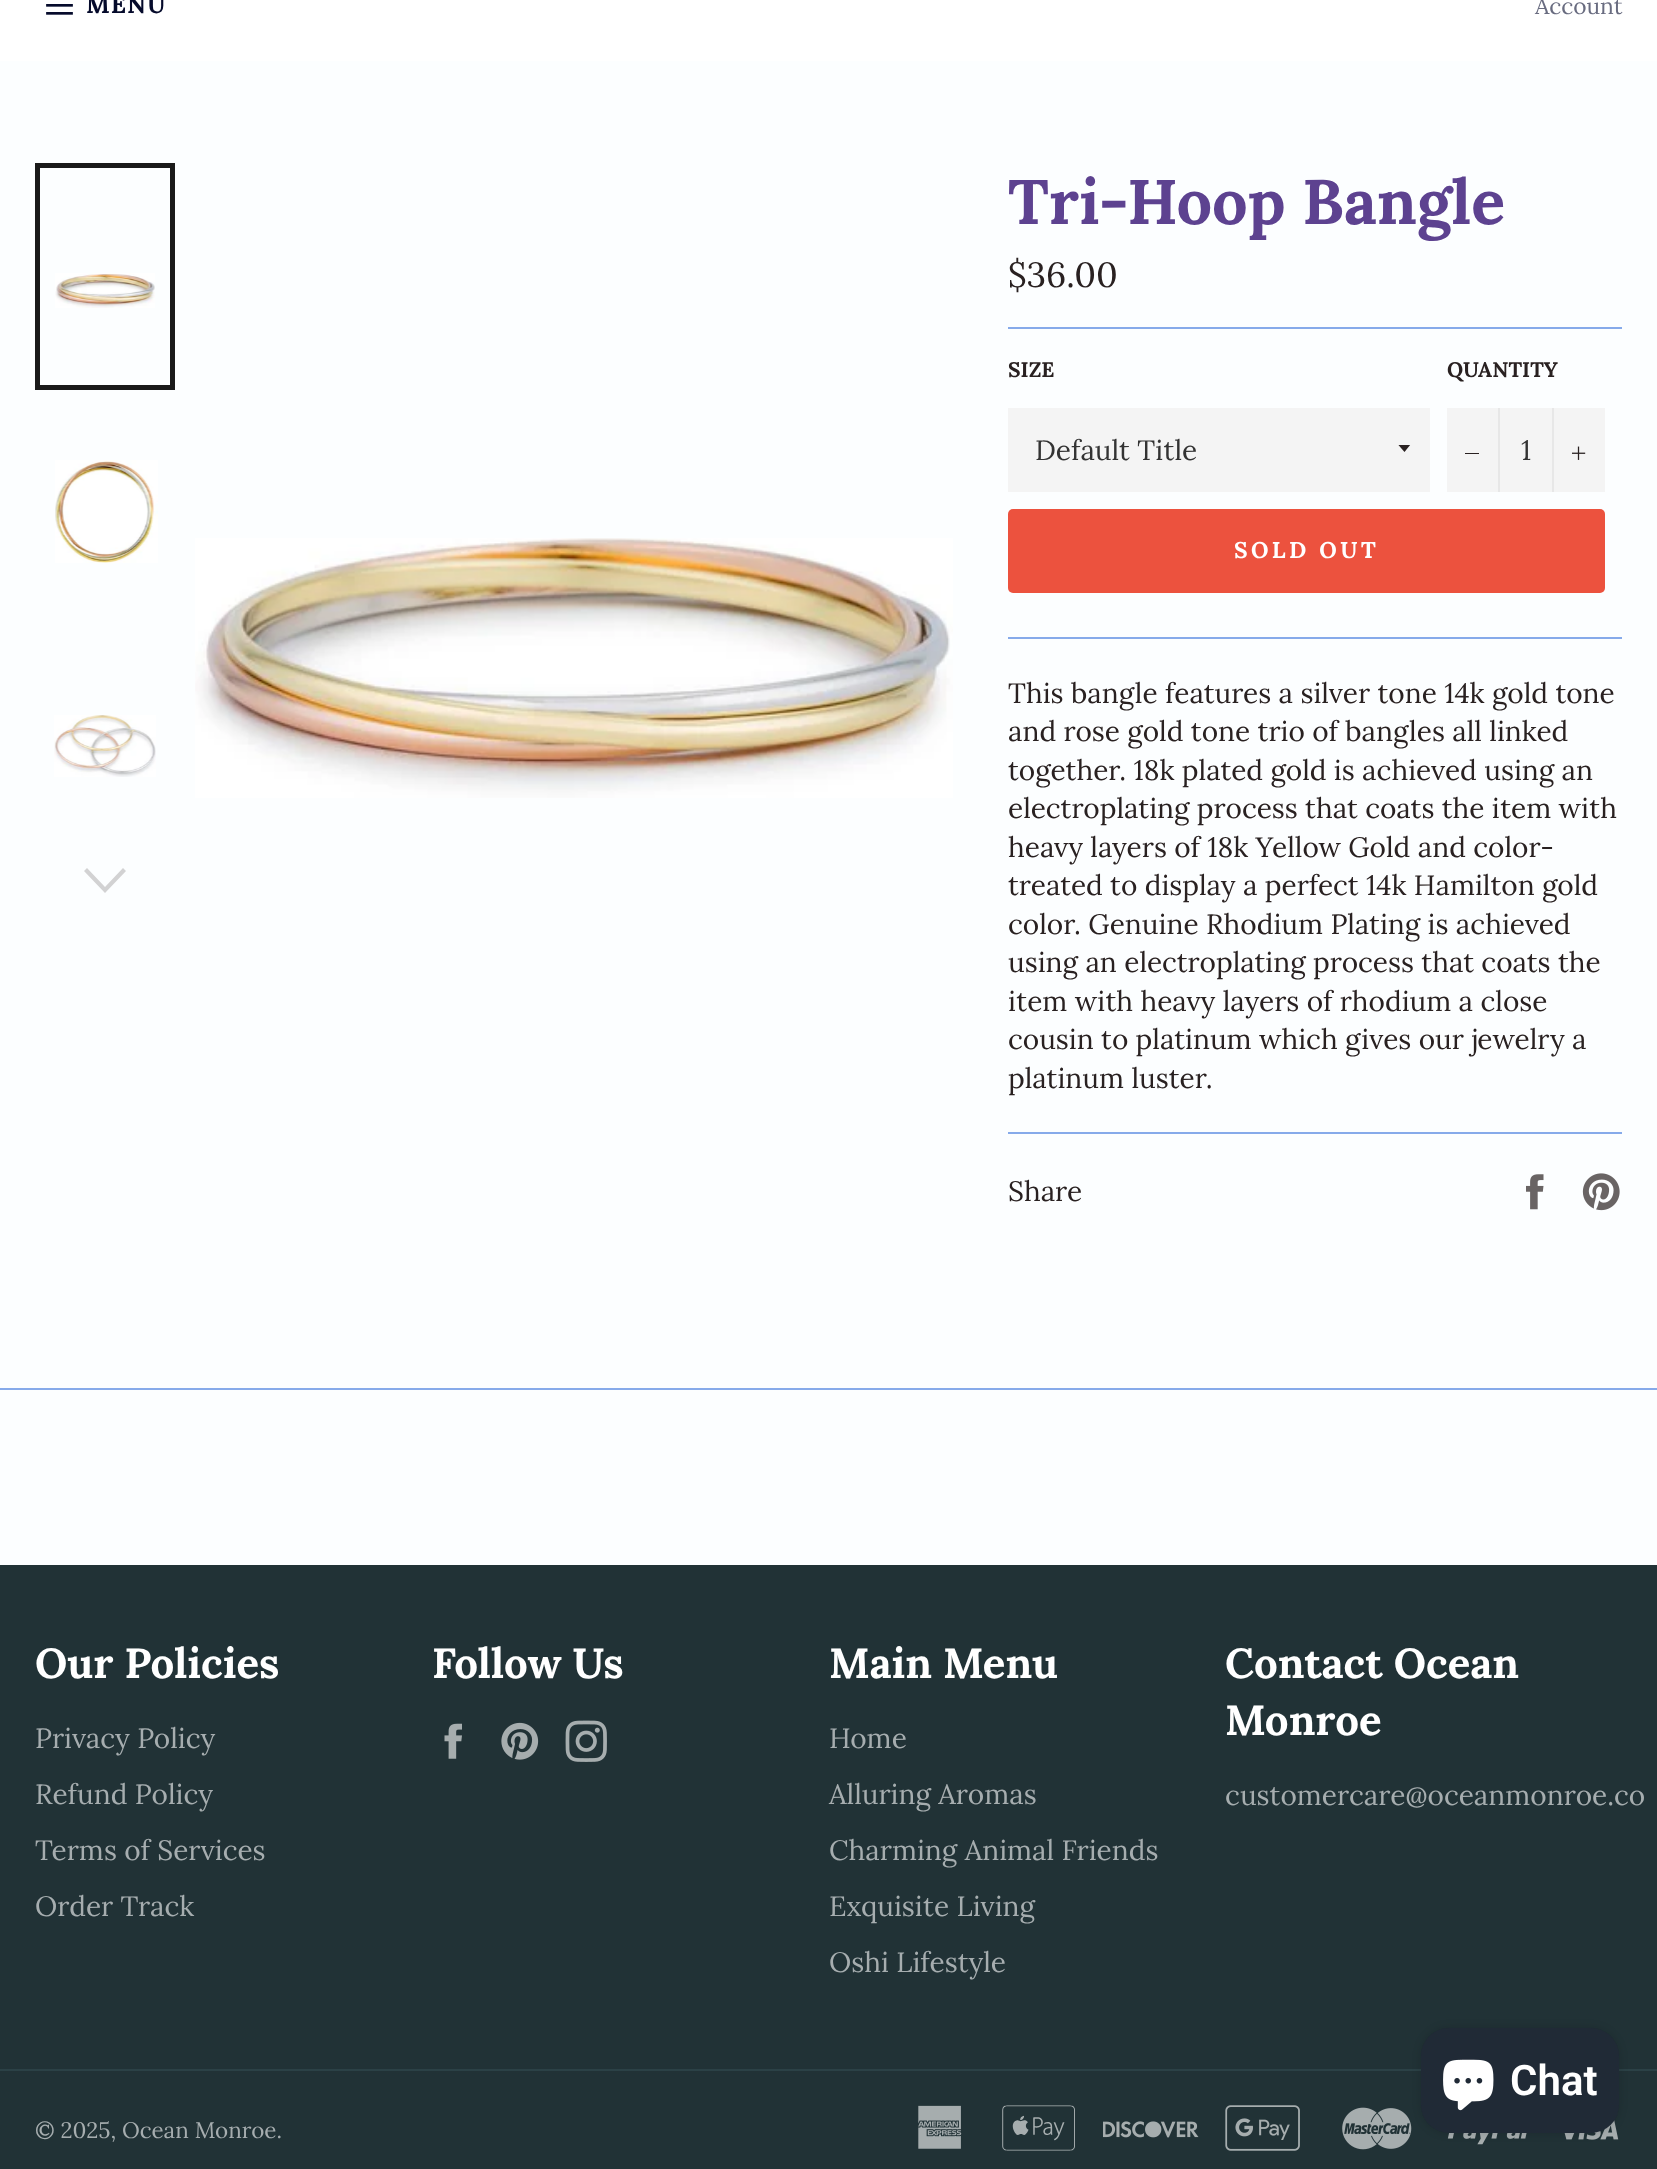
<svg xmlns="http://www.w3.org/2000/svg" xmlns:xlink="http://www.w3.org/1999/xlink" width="1657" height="2169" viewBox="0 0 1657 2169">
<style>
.cls-1{font:bold 24.5px Lora;letter-spacing:1px;fill:#050a2b}
.cls-2{font:22.75px Lora;fill:#696c80}
.cls-3{font:bold 63px Lora;fill:#5d4290}
.cls-4{font:35px Lora;fill:#292121}
.cls-5{font:bold 21px Lora;fill:#292121}
.cls-6{font:28px Lora;fill:#333333}
.cls-7{font:bold 22.75px Lora;letter-spacing:3.5px;fill:#ffffff}
.cls-8{font:28px Lora;fill:#292121}
.cls-9{font:bold 42px Lora;fill:#ffffff}
.cls-10{font:28px Lora;fill:#a6adaf}
.cls-11{font:22.4px Lora;fill:#a6adaf}
.cls-12{font:600 42px Roboto;fill:#ffffff}
</style>
<defs>
<clipPath id="clip1"><rect x="1398" y="445" width="14" height="8"/></clipPath>
</defs>
<rect width="100%" height="100%" fill="#fcfeff"/>
<rect fill="#ffffff" x="0" y="0" width="1657" height="61"/>
<image xlink:href="image0.png" x="46" y="4" width="27" height="11"/>
<image xlink:href="image1.png" x="55" y="273" width="100" height="35"/>
<rect fill="none" stroke="#1a1a1a" stroke-width="5" x="37.5" y="165.5" width="135" height="222"/>
<image xlink:href="image2.png" x="55" y="460" width="103" height="103"/>
<image xlink:href="image3.png" x="54" y="715" width="102" height="62"/>
<path fill="#d2d2d3" d="M123 868L126 871L105 893L84 871L87 868L105 887Z"/>
<image xlink:href="image4.png" x="195" y="538" width="758" height="260"/>
<rect fill="#86aaea" x="1008" y="327" width="614" height="2"/>
<rect fill="#f4f4f4" x="1008" y="408" width="422" height="84"/>
<g clip-path="url(#clip1)">
<path fill="#292121" d="M1398 444.5L1404.5 452L1410.5 444.5Z"/>
</g>
<rect fill="#f4f4f4" x="1447" y="408" width="158" height="84"/>
<rect fill="#e7e7e7" x="1498" y="408" width="2" height="84"/>
<rect fill="#292121" x="1465" y="453" width="14" height="1"/>
<rect fill="#e7e7e7" x="1552" y="408" width="2" height="84"/>
<image xlink:href="image5.png" x="1572" y="446" width="14" height="14"/>
<rect fill="#ec523e" x="1008" y="509" width="597" height="84" rx="5"/>
<rect fill="#86aaea" x="1008" y="637" width="614" height="2"/>
<rect fill="#86aaea" x="1008" y="1132" width="614" height="2"/>
<image xlink:href="image6.png" x="1526" y="1174" width="18" height="36"/>
<image xlink:href="image7.png" x="1582" y="1173" width="38" height="38"/>
<rect fill="#86aaea" x="0" y="1388" width="1657" height="2"/>
<rect fill="#213236" x="0" y="1565" width="1657" height="604"/>
<image xlink:href="image8.png" x="444" y="1723" width="18" height="36"/>
<image xlink:href="image9.png" x="501" y="1722" width="38" height="38"/>
<image xlink:href="image10.png" x="565" y="1720" width="42" height="42"/>
<rect fill="#2b4146" x="0" y="2069" width="1657" height="2"/>
<image xlink:href="image11.png" x="918" y="2105" width="44" height="44"/>
<image xlink:href="image12.png" x="1002" y="2105" width="73" height="46"/>
<image xlink:href="image13.png" x="1103" y="2121" width="96" height="17"/>
<image xlink:href="image14.png" x="1225" y="2105" width="75" height="46"/>
<image xlink:href="image15.png" x="1342" y="2107" width="70" height="43"/>
<image xlink:href="image16.png" x="1447" y="2133" width="80" height="12"/>
<image xlink:href="image17.png" x="1564" y="2120" width="55" height="20"/>
<rect fill="#000000" fill-opacity="0.15" filter="blur(4.5px)" x="1421" y="2028" width="198" height="105" rx="28"/>
<rect fill="#202a36" x="1421" y="2028" width="198" height="105" rx="28"/>
<image xlink:href="image18.png" x="1443" y="2059" width="51" height="52"/>
<text class="cls-1" x="86" y="13">MENU</text>
<text class="cls-2" x="1535" y="14">Account</text>
<text class="cls-3" x="1008" y="224">Tri-Hoop Bangle</text>
<text class="cls-4" x="1008" y="287">$36.00</text>
<text class="cls-5" x="1008" y="377">SIZE</text>
<text class="cls-6" x="1035" y="460">Default Title</text>
<text class="cls-5" x="1447" y="377">QUANTITY</text>
<text class="cls-6" x="1521" y="460">1</text>
<text class="cls-7" x="1234" y="558">SOLD OUT</text>
<text class="cls-8"><tspan x="1008" y="703">This bangle features a silver tone 14k gold tone</tspan><tspan x="1008" y="741">and rose gold tone trio of bangles all linked</tspan><tspan x="1008" y="780">together. 18k plated gold is achieved using an</tspan><tspan x="1008" y="818">electroplating process that coats the item with</tspan><tspan x="1008" y="857">heavy layers of 18k Yellow Gold and color-</tspan><tspan x="1008" y="895">treated to display a perfect 14k Hamilton gold</tspan><tspan x="1008" y="934">color. Genuine Rhodium Plating is achieved</tspan><tspan x="1008" y="972">using an electroplating process that coats the</tspan><tspan x="1008" y="1011">item with heavy layers of rhodium a close</tspan><tspan x="1008" y="1049">cousin to platinum which gives our jewelry a</tspan><tspan x="1008" y="1088">platinum luster.</tspan></text>
<text class="cls-8" x="1008" y="1201">Share</text>
<text class="cls-9" x="35" y="1678">Our Policies</text>
<text class="cls-10" x="35" y="1748">Privacy Policy</text>
<text class="cls-10" x="35" y="1804">Refund Policy</text>
<text class="cls-10" x="35" y="1860">Terms of Services</text>
<text class="cls-10" x="35" y="1916">Order Track</text>
<text class="cls-9" x="432" y="1678">Follow Us</text>
<text class="cls-9" x="829" y="1678">Main Menu</text>
<text class="cls-10" x="829" y="1748">Home</text>
<text class="cls-10" x="829" y="1804">Alluring Aromas</text>
<text class="cls-10" x="829" y="1860">Charming Animal Friends</text>
<text class="cls-10" x="829" y="1916">Exquisite Living</text>
<text class="cls-10" x="829" y="1972">Oshi Lifestyle</text>
<text class="cls-9"><tspan x="1225" y="1678">Contact Ocean</tspan><tspan x="1225" y="1735">Monroe</tspan></text>
<text class="cls-10" x="1225" y="1805">customercare@oceanmonroe.co</text>
<text class="cls-11" x="35" y="2138">© 2025, Ocean Monroe.</text>
<text class="cls-12" x="1510" y="2095">Chat</text>
</svg>
